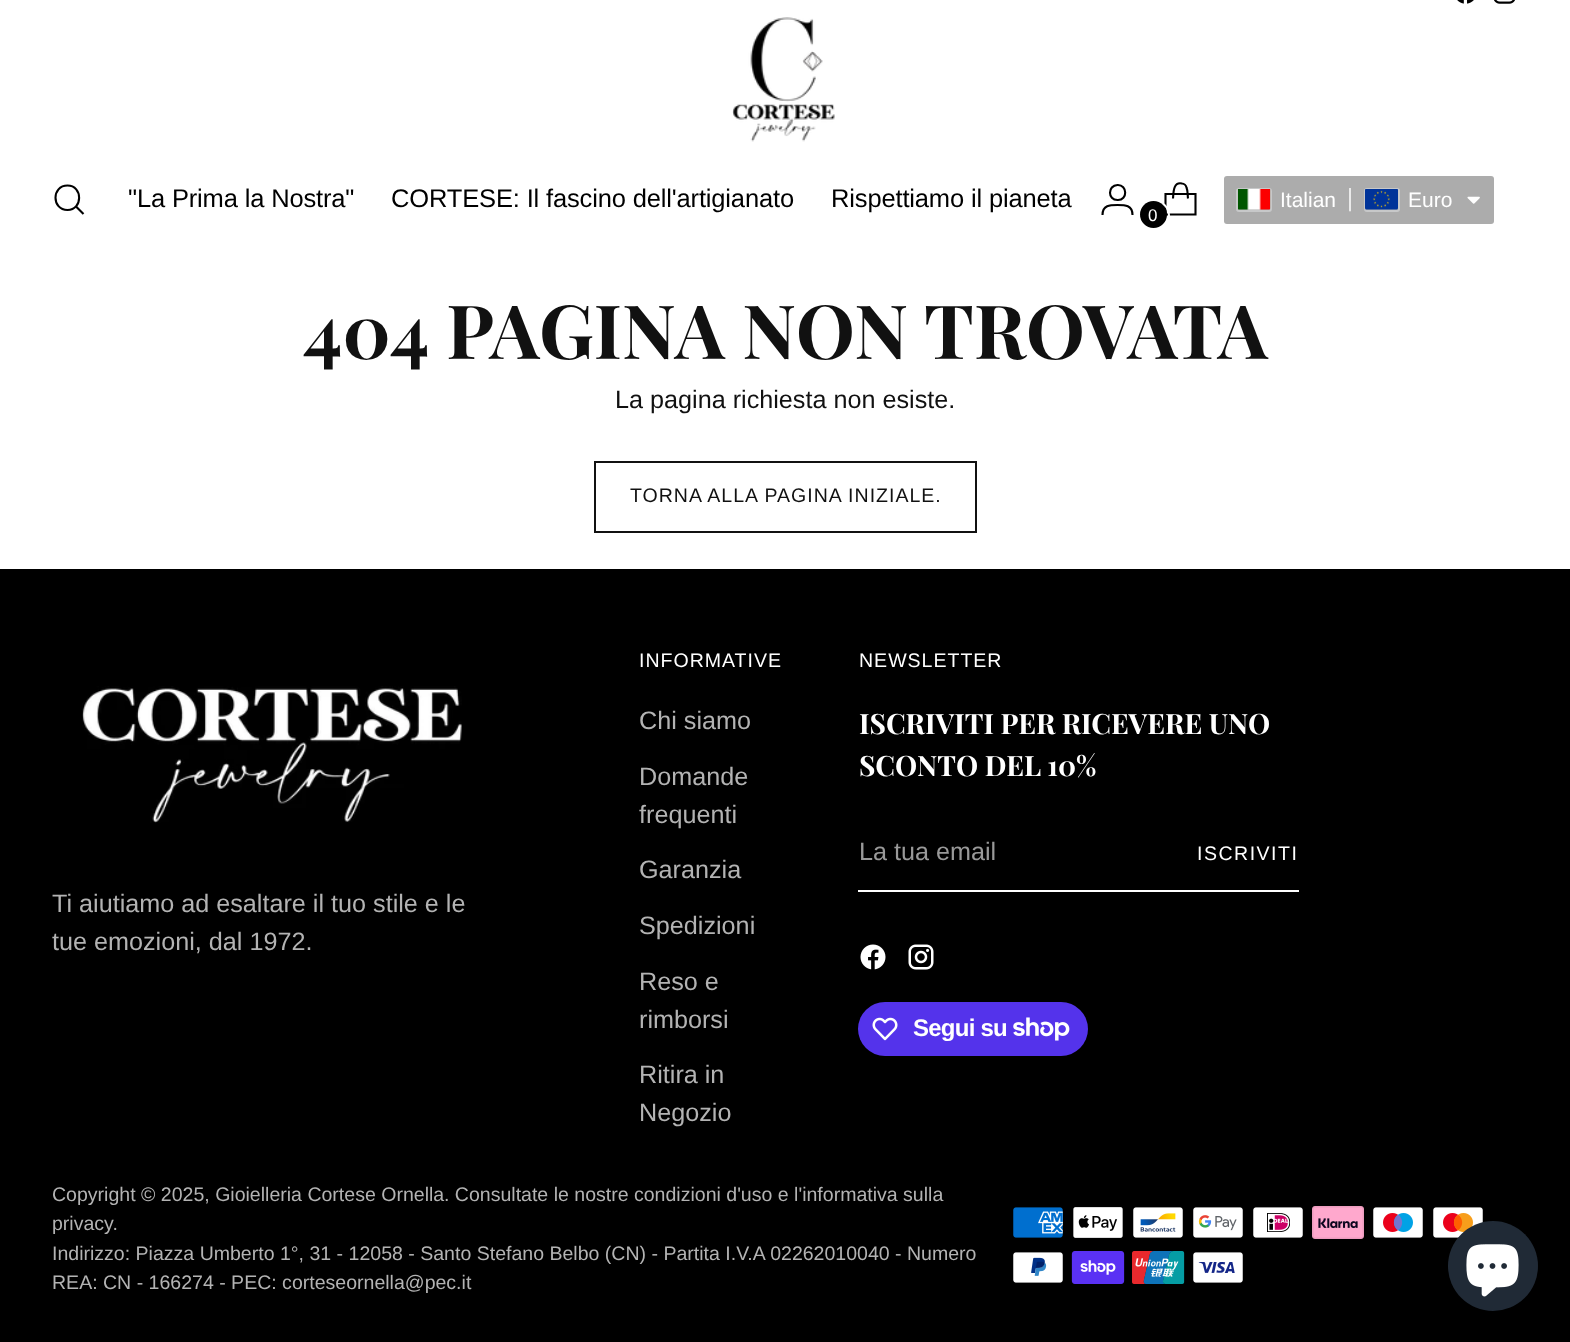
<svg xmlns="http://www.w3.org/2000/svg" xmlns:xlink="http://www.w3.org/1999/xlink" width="1570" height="1342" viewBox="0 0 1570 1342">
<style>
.cls-1{font:25.5px Liberation Sans;letter-spacing:-0.15px;fill:#000000}
.cls-2{font:21px Liberation Sans;fill:#ffffff}
.cls-3{font:17px Liberation Sans;fill:#ffffff}
.cls-4{font:bold 74.75px Playfair Display;fill:#111111}
.cls-5{font:25.2px Liberation Sans;fill:#111111}
.cls-6{font:19.55px Liberation Sans;letter-spacing:1px;fill:#111111}
.cls-7{font:25.2px Liberation Sans;fill:#b3b3b3}
.cls-8{font:19.55px Liberation Sans;letter-spacing:1px;fill:#ffffff}
.cls-9{font:bold 28px Playfair Display;fill:#ffffff}
.cls-10{font:25.2px Liberation Sans;fill:#999999}
.cls-11{font:19.55px Liberation Sans;letter-spacing:1.5px;fill:#ffffff}
.cls-12{font:bold 24px Liberation Sans;letter-spacing:-0.75px;fill:#ffffff}
.cls-13{font:19.55px Liberation Sans;fill:#b3b3b3}
</style>
<rect width="100%" height="100%" fill="#ffffff"/>
<image xlink:href="image0.png" x="1457" y="0" width="17" height="4"/>
<image xlink:href="image1.png" x="1494" y="0" width="21" height="4"/>
<image xlink:href="image2.png" x="732" y="17" width="103" height="125"/>
<path fill="none" stroke="#000000" stroke-width="2.1" stroke-linecap="round" d="M67.5 210C83 210 83 185.5 67.5 185.5C51.5 185.5 51.5 210 67.5 210Z"/>
<path fill="none" stroke="#000000" stroke-width="2.1" d="M76 206.5L83.5 214"/>
<path fill="none" stroke="#000000" stroke-width="2.1" d="M1117.5 200C1128 200.5 1127.5 184.5 1117.5 185C1107.5 185.5 1107.5 200 1117.5 200ZM1102.5 215C1102.5 205 1110 205 1117.5 205C1125 205 1132.5 205 1132.5 215"/>
<rect fill="#acacac" x="1224" y="176" width="270" height="48" rx="3"/>
<rect fill="none" stroke="#c7c8c9" stroke-width="2" x="1237" y="189" width="34" height="22" rx="2"/>
<image xlink:href="image3.png" x="1238" y="189" width="33" height="21"/>
<image xlink:href="image4.png" x="1349" y="188" width="2" height="24"/>
<rect fill="none" stroke="#c7c8c9" stroke-width="2" x="1365" y="189" width="34" height="22" rx="2"/>
<image xlink:href="image5.png" x="1365" y="189" width="33" height="21"/>
<image xlink:href="image6.png" x="1467" y="196" width="13" height="8"/>
<path fill="none" stroke="#000000" stroke-width="2.1" stroke-linejoin="bevel" d="M1188 198.5C1187.5 195 1188 191 1186.5 187.5C1186 185.5 1184 183.5 1182 183.5C1173 181.5 1173.5 193 1173 198.5"/>
<path fill="none" stroke="#000000" stroke-width="2.1" d="M1195.5 214.5V194H1165.5V214.5Z"/>
<circle fill="none" stroke="#ffffff" stroke-width="2" cx="1154.5" cy="215.5" r="14.5"/>
<circle fill="#000000" cx="1153.5" cy="214.5" r="13.5"/>
<rect fill="none" stroke="#111111" stroke-width="2" x="595" y="462" width="381" height="70"/>
<rect fill="#000000" x="0" y="569" width="1570" height="773"/>
<image xlink:href="image7.png" x="82" y="686" width="380" height="137"/>
<rect fill="#ffffff" x="858" y="890" width="441" height="2"/>
<image xlink:href="image8.png" x="860" y="944" width="26" height="26"/>
<image xlink:href="image9.png" x="908" y="944" width="26" height="26"/>
<rect fill="#5433eb" x="858" y="1002" width="230" height="54" rx="27"/>
<image xlink:href="image10.png" x="872" y="1017" width="26" height="24"/>
<image xlink:href="image11.png" x="1013" y="1017" width="57" height="24"/>
<image xlink:href="image12.png" x="1013" y="1207" width="50" height="31"/>
<image xlink:href="image13.png" x="1073" y="1207" width="50" height="31"/>
<image xlink:href="image14.png" x="1133" y="1207" width="50" height="31"/>
<image xlink:href="image15.png" x="1193" y="1207" width="50" height="31"/>
<image xlink:href="image16.png" x="1253" y="1207" width="50" height="31"/>
<image xlink:href="image17.png" x="1312" y="1206" width="52" height="33"/>
<image xlink:href="image18.png" x="1373" y="1207" width="50" height="31"/>
<image xlink:href="image19.png" x="1433" y="1207" width="50" height="31"/>
<image xlink:href="image20.png" x="1013" y="1252" width="50" height="31"/>
<image xlink:href="image21.png" x="1071" y="1251" width="54" height="33"/>
<image xlink:href="image22.png" x="1132" y="1251" width="53" height="33"/>
<image xlink:href="image23.png" x="1193" y="1252" width="50" height="31"/>
<circle fill="#202a36" cx="1493" cy="1266" r="45"/>
<image xlink:href="image24.png" x="1466" y="1244" width="53" height="53"/>
<text class="cls-1" x="128" y="207">"La Prima la Nostra"</text>
<text class="cls-1" x="391" y="207">CORTESE: Il fascino dell'artigianato</text>
<text class="cls-1" x="831" y="207">Rispettiamo il pianeta</text>
<text class="cls-2" x="1280" y="207">Italian</text>
<text class="cls-2" x="1408" y="207">Euro</text>
<text class="cls-3" x="1148" y="221">0</text>
<text class="cls-4" x="303" y="359">404 PAGINA NON TROVATA</text>
<text class="cls-5" x="615" y="408">La pagina richiesta non esiste.</text>
<text class="cls-6" x="630" y="502">TORNA ALLA PAGINA INIZIALE.</text>
<text class="cls-7"><tspan x="52" y="912">Ti aiutiamo ad esaltare il tuo stile e le</tspan><tspan x="52" y="950">tue emozioni, dal 1972.</tspan></text>
<text class="cls-8" x="639" y="667">INFORMATIVE</text>
<text class="cls-7" x="639" y="729">Chi siamo</text>
<text class="cls-7"><tspan x="639" y="785">Domande</tspan><tspan x="639" y="823">frequenti</tspan></text>
<text class="cls-7" x="639" y="878">Garanzia</text>
<text class="cls-7" x="639" y="934">Spedizioni</text>
<text class="cls-7"><tspan x="639" y="990">Reso e</tspan><tspan x="639" y="1028">rimborsi</tspan></text>
<text class="cls-7"><tspan x="639" y="1083">Ritira in</tspan><tspan x="639" y="1121">Negozio</tspan></text>
<text class="cls-8" x="859" y="667">NEWSLETTER</text>
<text class="cls-9"><tspan x="859" y="734">ISCRIVITI PER RICEVERE UNO</tspan><tspan x="859" y="776">SCONTO DEL 10%</tspan></text>
<text class="cls-10" x="859" y="860">La tua email</text>
<text class="cls-11" x="1197" y="860">ISCRIVITI</text>
<text class="cls-12" x="913" y="1036">Segui su</text>
<text class="cls-13" x="52" y="1201">Copyright © 2025, Gioielleria Cortese Ornella</text>
<text class="cls-13" x="444" y="1201">. Consultate le nostre condizioni d'uso e l'informativa sulla</text>
<text class="cls-13"><tspan x="52" y="1230">privacy.</tspan><tspan x="52" y="1260">Indirizzo: Piazza Umberto 1°, 31 - 12058 - Santo Stefano Belbo (CN) - Partita I.V.A 02262010040 - Numero</tspan><tspan x="52" y="1289">REA: CN - 166274 - PEC: corteseornella@pec.it</tspan></text>
</svg>
